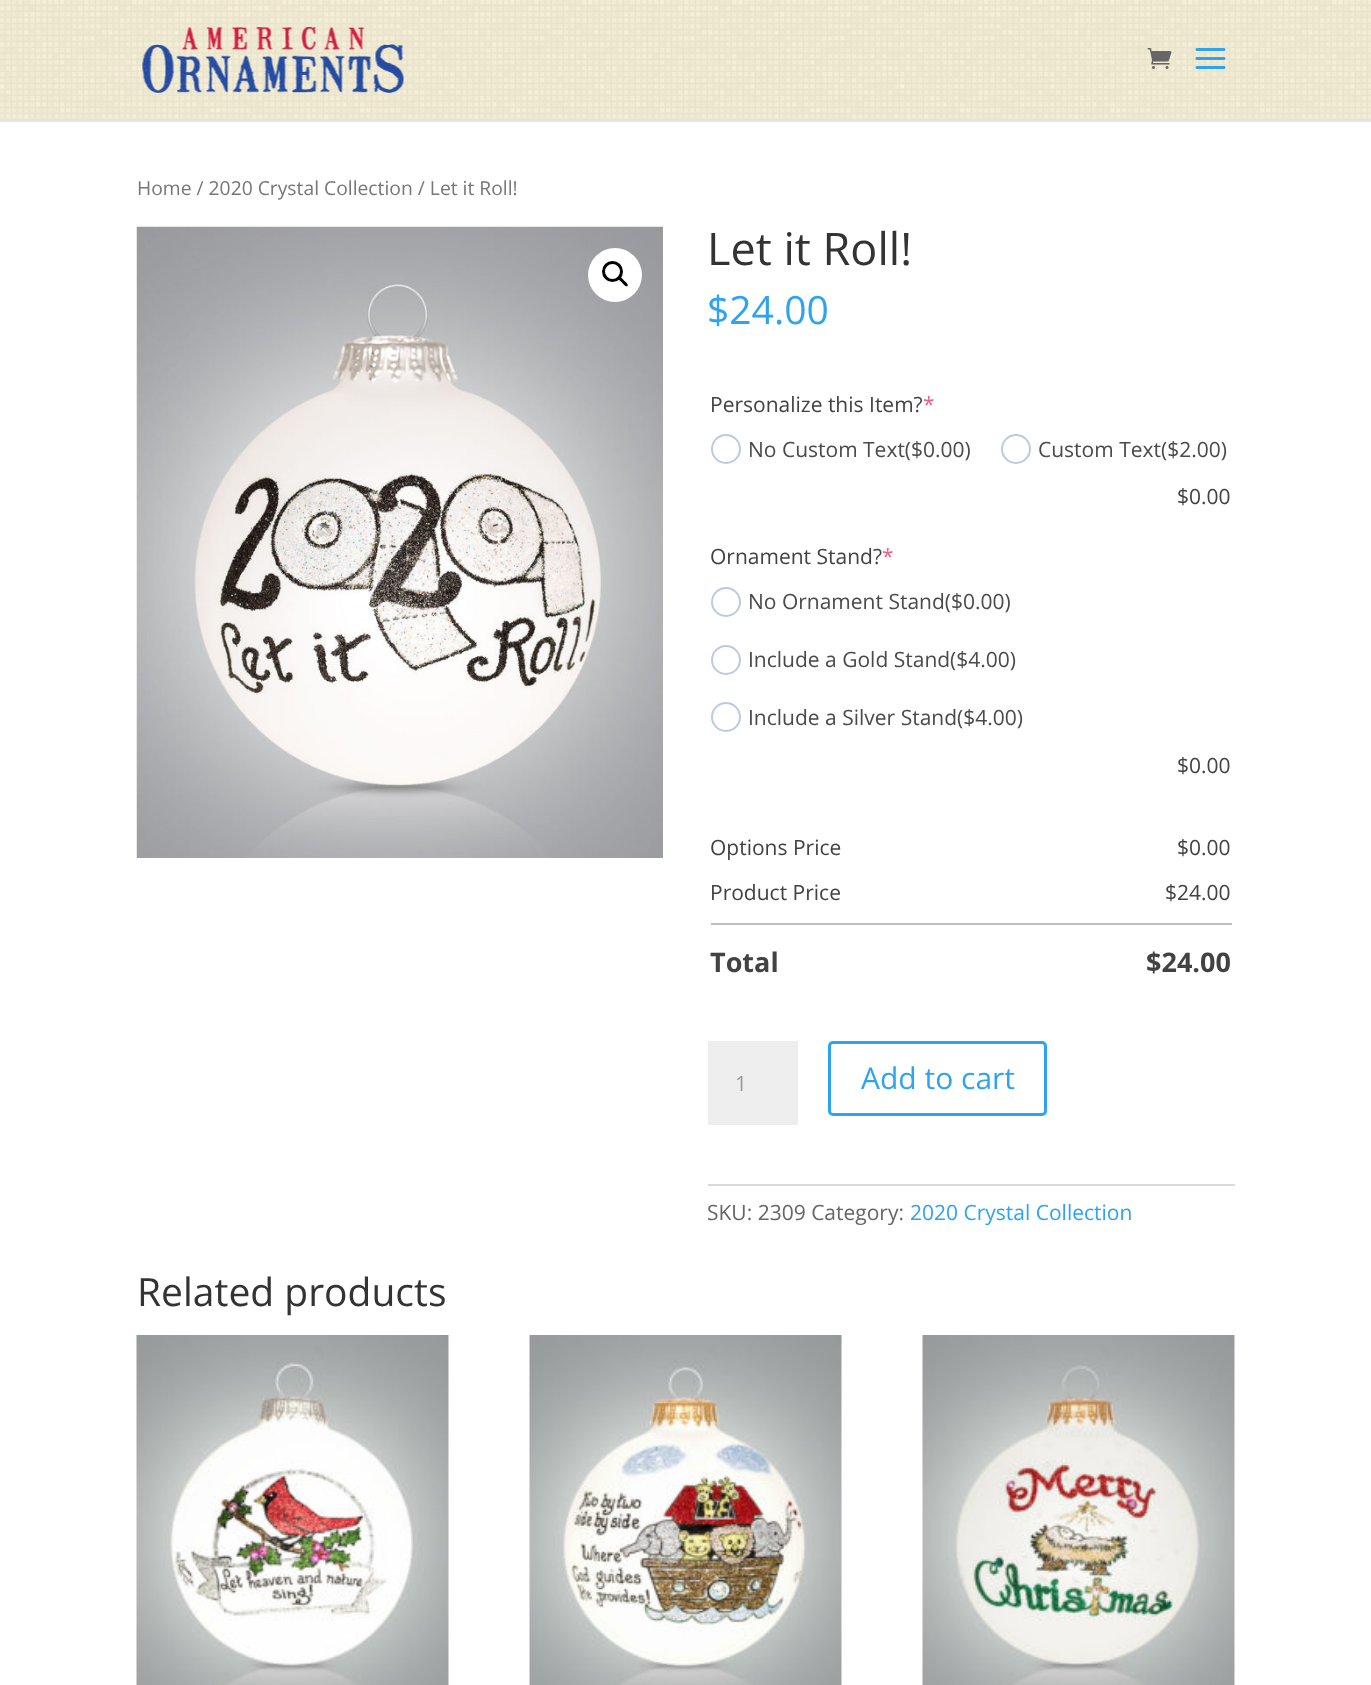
<svg xmlns="http://www.w3.org/2000/svg" xmlns:xlink="http://www.w3.org/1999/xlink" width="1371" height="1685" viewBox="0 0 1371 1685">
<style>
.cls-1{font:19.3px Open Sans;fill:#767676}
.cls-2{font:45px Open Sans;fill:#333333}
.cls-3{font:39px Open Sans;fill:#2ea3f2}
.cls-4{font:21px Open Sans;fill:#424242}
.cls-5{font:21px Open Sans;fill:#f25a87}
.cls-6{font:21px Open Sans;fill:#4a4a4a}
.cls-7{font:bold 27px Open Sans;fill:#424242}
.cls-8{font:21px Open Sans;fill:#999999}
.cls-9{font:30px Open Sans;fill:#2ea3f2}
.cls-10{font:21px Open Sans;fill:#666666}
.cls-11{font:21px Open Sans;fill:#2ea3f2}
.cls-12{font:39px Open Sans;fill:#333333}
</style>
<rect width="100%" height="100%" fill="#ffffff"/>
<rect fill="#e6e6e6" x="0" y="120" width="1371" height="2"/>
<rect fill="#faf2d7" x="0" y="0" width="1371" height="120"/>
<image xlink:href="image0.png" x="0" y="0" width="1371" height="120"/>
<image xlink:href="image1.png" x="142" y="27" width="262" height="66"/>
<image xlink:href="image2.png" x="1147" y="48" width="25" height="21"/>
<image xlink:href="image3.png" x="1195" y="48" width="31" height="21"/>
<image xlink:href="image4.png" x="136" y="226" width="527" height="632"/>
<circle fill="#ffffff" cx="615" cy="275" r="27"/>
<circle fill="none" stroke="#000000" stroke-width="3" cx="612.5" cy="271.5" r="9"/>
<path fill="#000000" d="M619 277.5C620.5 275.5 623 279.5 624 280.5C625 281.5 629 284 627.5 286C625.5 287.5 623 283.5 622 282.5C621 281.5 617 279 619 277.5Z"/>
<circle fill="none" stroke="#b9cbe3" stroke-width="2" cx="726" cy="449" r="14"/>
<circle fill="none" stroke="#b9cbe3" stroke-width="2" cx="1016" cy="449" r="14"/>
<circle fill="none" stroke="#b9cbe3" stroke-width="2" cx="726" cy="602" r="14"/>
<circle fill="none" stroke="#b9cbe3" stroke-width="2" cx="726" cy="660" r="14"/>
<circle fill="none" stroke="#b9cbe3" stroke-width="2" cx="726" cy="717" r="14"/>
<rect fill="#bebebe" x="711" y="923" width="521" height="2"/>
<rect fill="#eeeeee" x="708" y="1041" width="90" height="84"/>
<rect fill="none" stroke="#2ea3f2" stroke-width="3" x="829.5" y="1042.5" width="216" height="72" rx="3.5"/>
<rect fill="#dadada" x="708" y="1184" width="527" height="2"/>
<image xlink:href="image5.png" x="136" y="1335" width="313" height="350"/>
<image xlink:href="image6.png" x="529" y="1335" width="313" height="350"/>
<image xlink:href="image7.png" x="922" y="1335" width="313" height="350"/>
<text class="cls-1" x="137" y="195">Home / 2020 Crystal Collection / Let it Roll!</text>
<text class="cls-2" x="707" y="265">Let it Roll!</text>
<text class="cls-3" x="707" y="324">$24.00</text>
<text class="cls-4" x="710" y="412">Personalize this Item?</text>
<text class="cls-5" x="923" y="412">*</text>
<text class="cls-6" x="748" y="457">No Custom Text($0.00)</text>
<text class="cls-6" x="1038" y="457">Custom Text($2.00)</text>
<text class="cls-4" x="1177" y="504">$0.00</text>
<text class="cls-4" x="710" y="564">Ornament Stand?</text>
<text class="cls-5" x="882" y="564">*</text>
<text class="cls-6" x="748" y="609">No Ornament Stand($0.00)</text>
<text class="cls-6" x="748" y="667">Include a Gold Stand($4.00)</text>
<text class="cls-6" x="748" y="725">Include a Silver Stand($4.00)</text>
<text class="cls-4" x="1177" y="773">$0.00</text>
<text class="cls-4" x="710" y="855">Options Price</text>
<text class="cls-4" x="1177" y="855">$0.00</text>
<text class="cls-4" x="710" y="900">Product Price</text>
<text class="cls-4" x="1165" y="900">$24.00</text>
<text class="cls-7" x="710" y="972">Total</text>
<text class="cls-7" x="1146" y="972">$24.00</text>
<text class="cls-8" x="735" y="1091">1</text>
<text class="cls-9" x="861" y="1089">Add to cart</text>
<text class="cls-10" x="707" y="1220">SKU: 2309 Category:</text>
<text class="cls-11" x="910" y="1220">2020 Crystal Collection</text>
<text class="cls-12" x="137" y="1306">Related products</text>
</svg>
